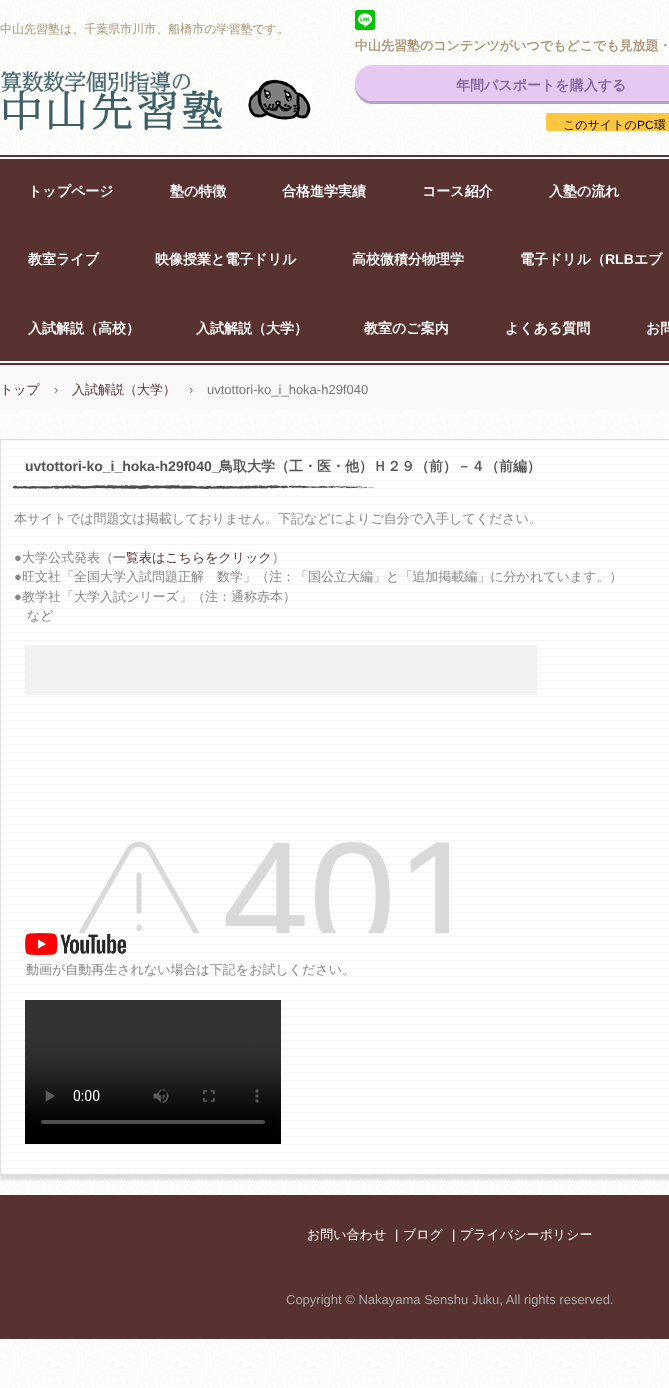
<svg xmlns="http://www.w3.org/2000/svg" xmlns:xlink="http://www.w3.org/1999/xlink" width="669" height="1388" viewBox="0 0 669 1388">
<style>
.cls-1{font:500 12px WenQuanYi Zen Hei;fill:#ac9577}
.cls-2{font:bold 13px WenQuanYi Zen Hei;fill:#ac9577}
.cls-3{font:bold 14px WenQuanYi Zen Hei;fill:#8666a3}
.cls-4{font:500 12px WenQuanYi Zen Hei;fill:#000000}
.cls-5{font:12px Liberation Sans;fill:#000000}
.cls-6{font:bold 14px WenQuanYi Zen Hei;fill:#ffffff}
.cls-7{font:bold 14px Liberation Sans;fill:#ffffff}
.cls-8{font:500 13px WenQuanYi Zen Hei;fill:#573231}
.cls-9{font:13px Liberation Sans;fill:#777777}
.cls-10{font:bold 14px Liberation Sans;fill:#555555}
.cls-11{font:bold 14px WenQuanYi Zen Hei;fill:#555555}
.cls-12{font:500 13px WenQuanYi Zen Hei;fill:#888888}
.cls-13{font:13px Liberation Sans;fill:#888888}
.cls-14{font:500 13px WenQuanYi Zen Hei;fill:#ffffff}
.cls-15{font:13px Liberation Sans;fill:#ffffff}
.cls-16{font:13px Liberation Sans;fill:#aaaaaa}
</style>
<rect width="100%" height="100%" fill="#ffffff"/>
<image xlink:href="image0.png" x="0" y="0" width="669" height="1388"/>
<image xlink:href="image1.png" x="1" y="71" width="312" height="59"/>
<image xlink:href="image2.png" x="355" y="10" width="20" height="20"/>
<path fill="#b89cc5" d="M355 84C354 95 363 104 373 104H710C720 104 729 95 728 84C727 94 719 101 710 101H373C364 101 356 94 355 84Z"/>
<rect fill="#e5c9f2" x="355" y="65" width="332" height="36" rx="18"/>
<rect fill="#ffc741" stroke="#ffffff" stroke-width="2" x="545" y="112" width="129" height="20" rx="3"/>
<rect fill="#573231" x="0" y="155" width="669" height="210"/>
<image xlink:href="image3.png" x="0" y="157" width="669" height="206"/>
<rect fill="#faf8f8" x="0" y="365" width="669" height="44"/>
<rect fill="#000000" fill-opacity="0.12" filter="blur(1.5px)" x="0" y="444" width="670" height="736"/>
<rect fill="#ffffff" x="1" y="1169" width="668" height="5"/>
<image xlink:href="image4.png" x="1" y="440" width="668" height="729"/>
<rect fill="none" stroke="#dddddd" x="0.5" y="439.5" width="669" height="735"/>
<image xlink:href="image5.png" x="13" y="485" width="361" height="4"/>
<image xlink:href="image6.png" x="25" y="645" width="512" height="288"/>
<image xlink:href="image7.png" x="25" y="933" width="101" height="22"/>
<image xlink:href="image8.png" x="25" y="1000" width="256" height="144"/>
<rect fill="#573231" x="0" y="1195" width="669" height="144"/>
<text class="cls-1" x="0" y="33">中山先習塾は、千葉県市川市、船橋市の学習塾です。</text>
<text class="cls-2" x="355" y="50">中山先習塾のコンテンツがいつでもどこでも見放題・</text>
<text class="cls-3" x="456" y="90">年間パスポートを購入する</text>
<text class="cls-4" x="563" y="129">このサイトの</text>
<text class="cls-5" x="637" y="129">PC</text>
<text class="cls-4" x="654" y="129">環</text>
<text class="cls-6" x="28" y="196">トップページ</text>
<text class="cls-6" x="170" y="196">塾の特徴</text>
<text class="cls-6" x="282" y="196">合格進学実績</text>
<text class="cls-6" x="422" y="196">コース紹介</text>
<text class="cls-6" x="549" y="196">入塾の流れ</text>
<text class="cls-6" x="28" y="264">教室ライブ</text>
<text class="cls-6" x="155" y="264">映像授業と電子ドリル</text>
<text class="cls-6" x="352" y="264">高校微積分物理学</text>
<text class="cls-6" x="520" y="264">電子ドリル（</text>
<text class="cls-7" x="605" y="264">RLB</text>
<text class="cls-6" x="634" y="264">エブ</text>
<text class="cls-6" x="28" y="333">入試解説（高校）</text>
<text class="cls-6" x="196" y="333">入試解説（大学）</text>
<text class="cls-6" x="364" y="333">教室のご案内</text>
<text class="cls-6" x="505" y="333">よくある質問</text>
<text class="cls-6" x="646" y="333">お問</text>
<text class="cls-8" x="0" y="394">トップ</text>
<text class="cls-9" x="54" y="394">›</text>
<text class="cls-8" x="72" y="394">入試解説（大学）</text>
<text class="cls-9" x="189" y="394">›</text>
<text class="cls-9" x="207" y="394">uvtottori-ko_i_hoka-h29f040</text>
<text class="cls-10" x="25" y="471">uvtottori-ko_i_hoka-h29f040_</text>
<text class="cls-11" x="219" y="471">鳥取大学（工・医・他）Ｈ２９（前）－４（前編）</text>
<text class="cls-12" x="14" y="523">本サイトでは問題文は掲載しておりません。下記などによりご自分で入手してください。</text>
<text class="cls-13" x="14" y="562">●</text>
<text class="cls-12" x="22" y="562">大学公式発表（</text>
<text class="cls-8" x="113" y="562">一覧表はこちらをクリック</text>
<text class="cls-12" x="272" y="562">）</text>
<text class="cls-13" x="14" y="581">●</text>
<text class="cls-12" x="22" y="581">旺文社「全国大学入試問題正解　数学」（注：「国公立大編」と「追加掲載編」に分かれています。）</text>
<text class="cls-13" x="14" y="601">●</text>
<text class="cls-12" x="22" y="601">教学社「大学入試シリーズ」（注：通称赤本）</text>
<text class="cls-12" x="27" y="620">など</text>
<text class="cls-12" x="26" y="974">動画が自動再生されない場合は下記をお試しください。</text>
<text class="cls-14" x="307" y="1239">お問い合わせ</text>
<text class="cls-15" x="395" y="1239">|</text>
<text class="cls-14" x="403" y="1239">ブログ</text>
<text class="cls-15" x="452" y="1239">|</text>
<text class="cls-14" x="460" y="1239">プライバシーポリシー</text>
<text class="cls-16" x="286" y="1304">Copyright © Nakayama Senshu Juku, All rights reserved.</text>
</svg>
